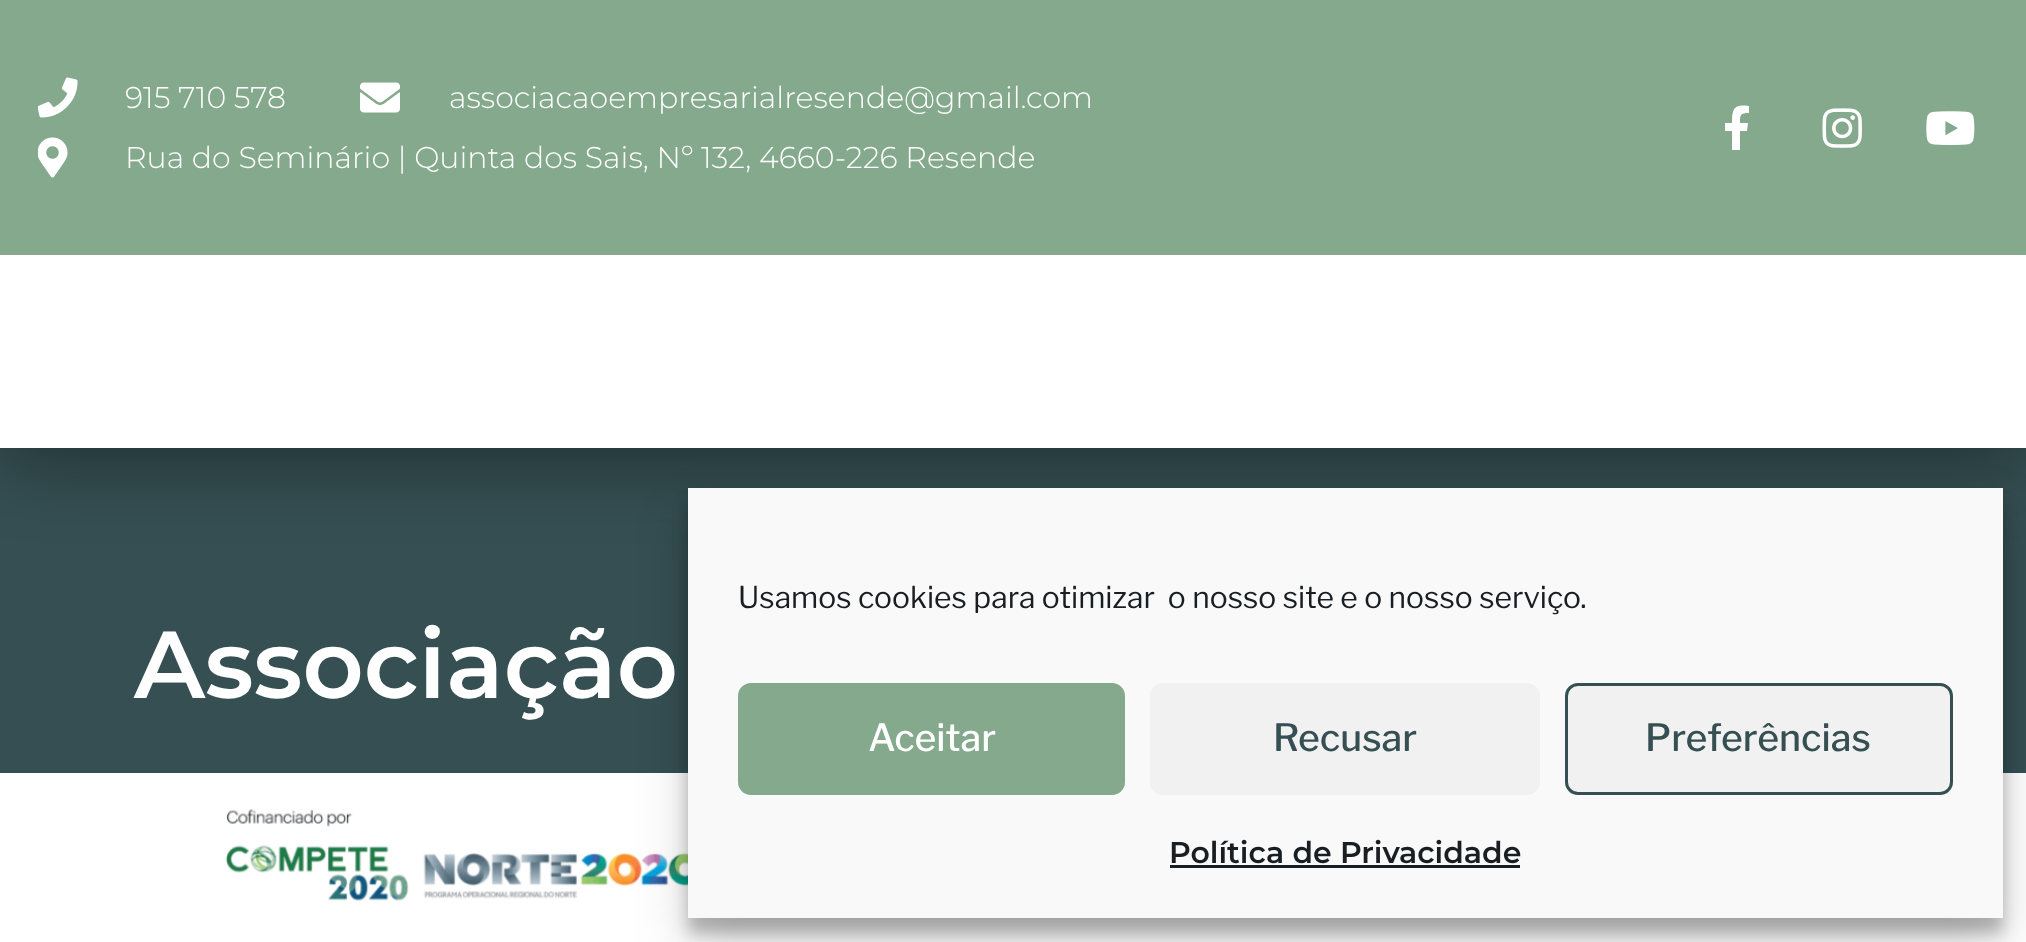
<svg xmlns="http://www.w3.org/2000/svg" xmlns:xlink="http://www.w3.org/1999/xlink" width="2026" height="942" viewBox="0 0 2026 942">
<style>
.cls-1{font:300 30px Montserrat;fill:#ffffff}
.cls-2{font:600 95px Montserrat;fill:#ffffff}
.cls-3{font:30px Libre Franklin;fill:#191e23}
.cls-4{font:500 37.5px Libre Franklin;fill:#ffffff}
.cls-5{font:500 37.5px Libre Franklin;fill:#354f52}
.cls-6{font:600 30px Montserrat;fill:#191e23}
</style>
<defs>
<clipPath id="clip1"><rect x="1660" y="105" width="330" height="45"/></clipPath>
</defs>
<rect width="100%" height="100%" fill="#354f52"/>
<rect fill="#000000" fill-opacity="0.38" filter="blur(37.5px)" x="0" y="13" width="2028" height="447"/>
<rect fill="#84a98c" x="0" y="0" width="2026" height="255"/>
<image xlink:href="image0.png" x="38" y="77" width="40" height="41"/>
<image xlink:href="image1.png" x="360" y="82" width="40" height="31"/>
<image xlink:href="image2.png" x="38" y="137" width="30" height="41"/>
<g clip-path="url(#clip1)">
<path fill="#ffffff" d="M1747 131H1740V151H1732V131H1725V123H1732C1732 108 1734 104 1749 106V113C1740 113 1740 115 1740 123H1748Z"/>
</g>
<image xlink:href="image3.png" x="1822" y="108" width="40" height="40"/>
<image xlink:href="image4.png" x="1926" y="111" width="49" height="34"/>
<rect fill="#ffffff" x="0" y="255" width="2026" height="193"/>
<rect fill="#ffffff" x="0" y="773" width="2026" height="169"/>
<image xlink:href="image5.png" x="225" y="809" width="463" height="97"/>
<rect fill="#000000" fill-opacity="0.23" filter="blur(7.5px)" x="688" y="503" width="1315" height="430"/>
<rect fill="#000000" fill-opacity="0.19" filter="blur(25px)" x="688" y="513" width="1315" height="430"/>
<rect fill="#f9f9f9" x="688" y="488" width="1315" height="430"/>
<rect fill="#84a98c" stroke="#84a98c" stroke-width="3" x="739.5" y="684.5" width="384" height="109" rx="11.5"/>
<rect fill="#f1f1f1" x="1150" y="683" width="390" height="112" rx="13"/>
<rect fill="#f1f1f1" stroke="#354f52" stroke-width="3" x="1566.5" y="684.5" width="385" height="109" rx="11.5"/>
<rect fill="#191e23" x="1170" y="865" width="350" height="3"/>
<text class="cls-1" x="125" y="108">915 710 578</text>
<text class="cls-1" x="449" y="108">associacaoempresarialresende@gmail.com</text>
<text class="cls-1" x="125" y="168">Rua do Seminário | Quinta dos Sais, Nº 132, 4660-226 Resende</text>
<text class="cls-2" x="134" y="698">Associação</text>
<text class="cls-3" xml:space="preserve" x="738" y="608">Usamos cookies para otimizar  o nosso site e o nosso serviço.</text>
<text class="cls-4" x="868" y="751">Aceitar</text>
<text class="cls-5" x="1273" y="751">Recusar</text>
<text class="cls-5" x="1645" y="751">Preferências</text>
<text class="cls-6" x="1169" y="863">Política de Privacidade</text>
</svg>
